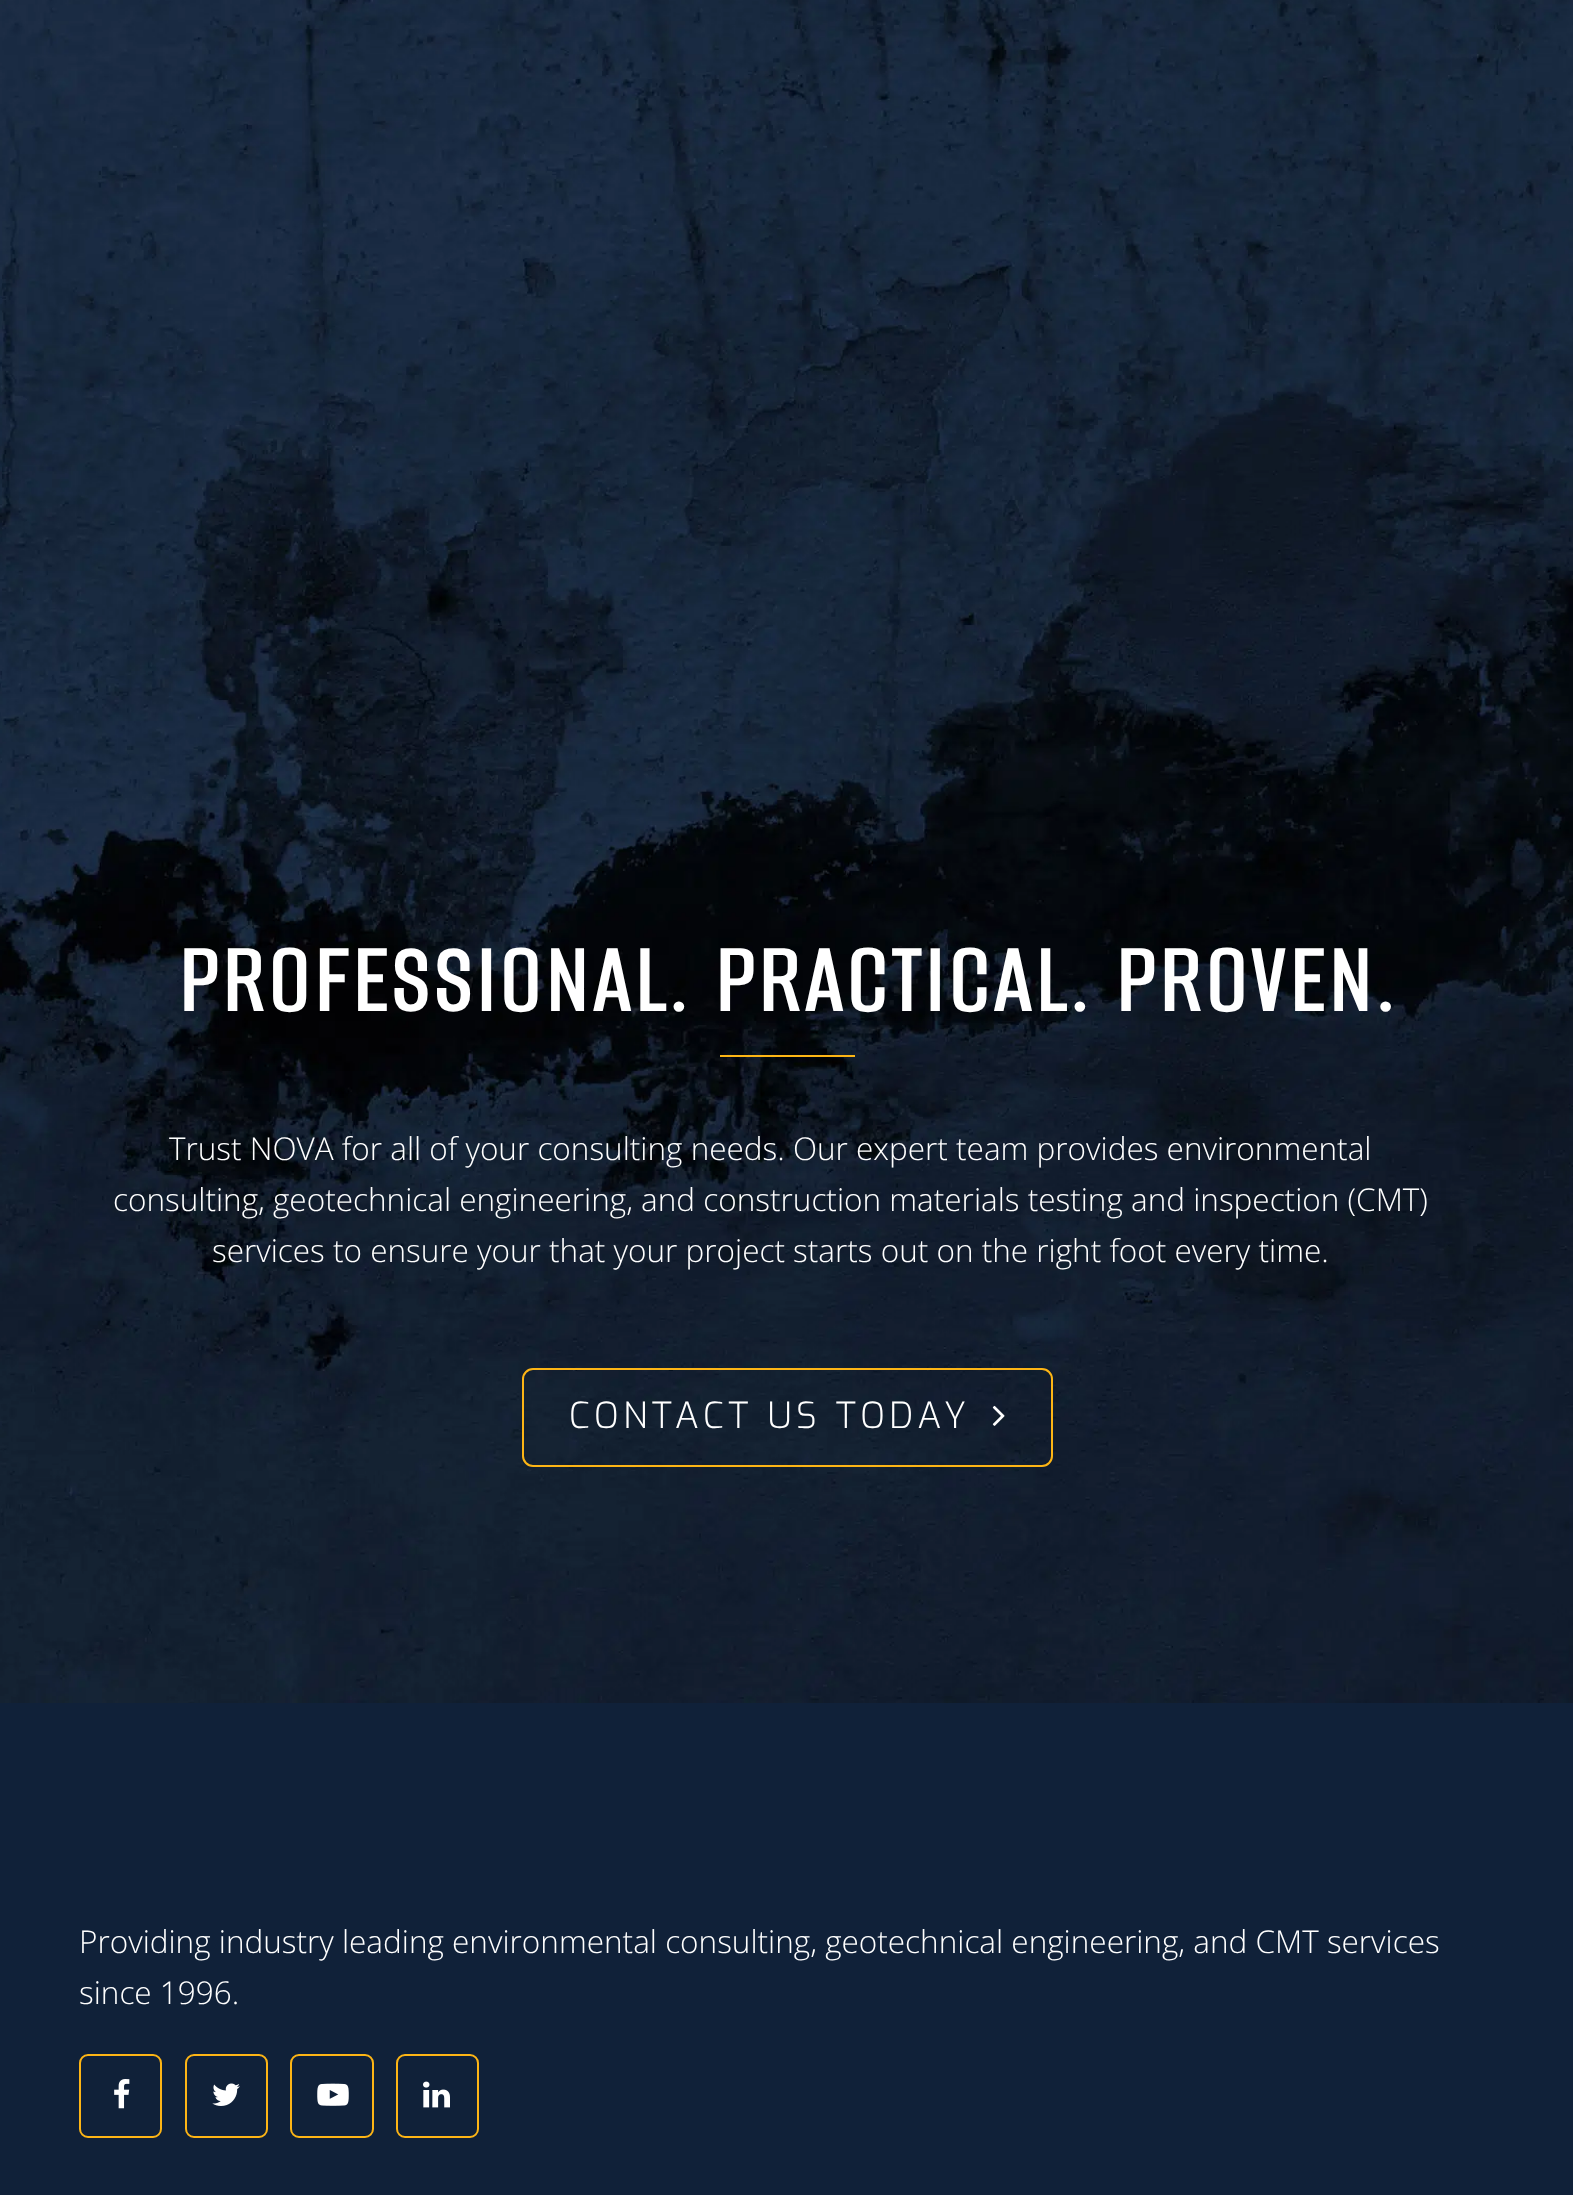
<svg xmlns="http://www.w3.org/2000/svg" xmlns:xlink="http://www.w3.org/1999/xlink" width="1573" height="2195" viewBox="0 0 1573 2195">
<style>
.cls-1{font:bold 101.25px Alumni Sans;letter-spacing:4.5px;fill:#ffffff}
.cls-2{font:300 31.5px Open Sans;fill:#ffffff}
.cls-3{font:300 36px Exo;letter-spacing:4.5px;fill:#ffffff}
</style>
<rect width="100%" height="100%" fill="#ffffff"/>
<image xlink:href="image0.png" x="0" y="0" width="1573" height="1703"/>
<rect fill="#fdb515" x="720" y="1055" width="135" height="2"/>
<rect fill="none" stroke="#fdb515" stroke-width="2" x="523" y="1369" width="529" height="97" rx="10"/>
<image xlink:href="image1.png" x="992" y="1405" width="13" height="21"/>
<rect fill="#102139" x="0" y="1703" width="1573" height="492"/>
<rect fill="none" stroke="#fdb515" stroke-width="2" x="80" y="2055" width="81" height="82" rx="8"/>
<image xlink:href="image2.png" x="114" y="2079" width="16" height="30"/>
<rect fill="none" stroke="#fdb515" stroke-width="2" x="186" y="2055" width="81" height="82" rx="8"/>
<image xlink:href="image3.png" x="212" y="2083" width="28" height="23"/>
<rect fill="none" stroke="#fdb515" stroke-width="2" x="291" y="2055" width="82" height="82" rx="8"/>
<image xlink:href="image4.png" x="317" y="2083" width="32" height="23"/>
<rect fill="none" stroke="#fdb515" stroke-width="2" x="397" y="2055" width="81" height="82" rx="8"/>
<image xlink:href="image5.png" x="423" y="2081" width="27" height="27"/>
<text class="cls-1" x="178" y="1011">PROFESSIONAL. PRACTICAL. PROVEN.</text>
<text class="cls-2" x="169" y="1160">Trust NOVA for all of your consulting needs. Our expert team provides environmental</text>
<text class="cls-2" x="113" y="1211">consulting, geotechnical engineering, and construction materials testing and inspection (CMT)</text>
<text class="cls-2" x="212" y="1262">services to ensure your that your project starts out on the right foot every time.</text>
<text class="cls-3" x="569" y="1428">CONTACT US TODAY</text>
<text class="cls-2"><tspan x="79" y="1953">Providing industry leading environmental consulting, geotechnical engineering, and CMT services</tspan><tspan x="79" y="2004">since 1996.</tspan></text>
</svg>
